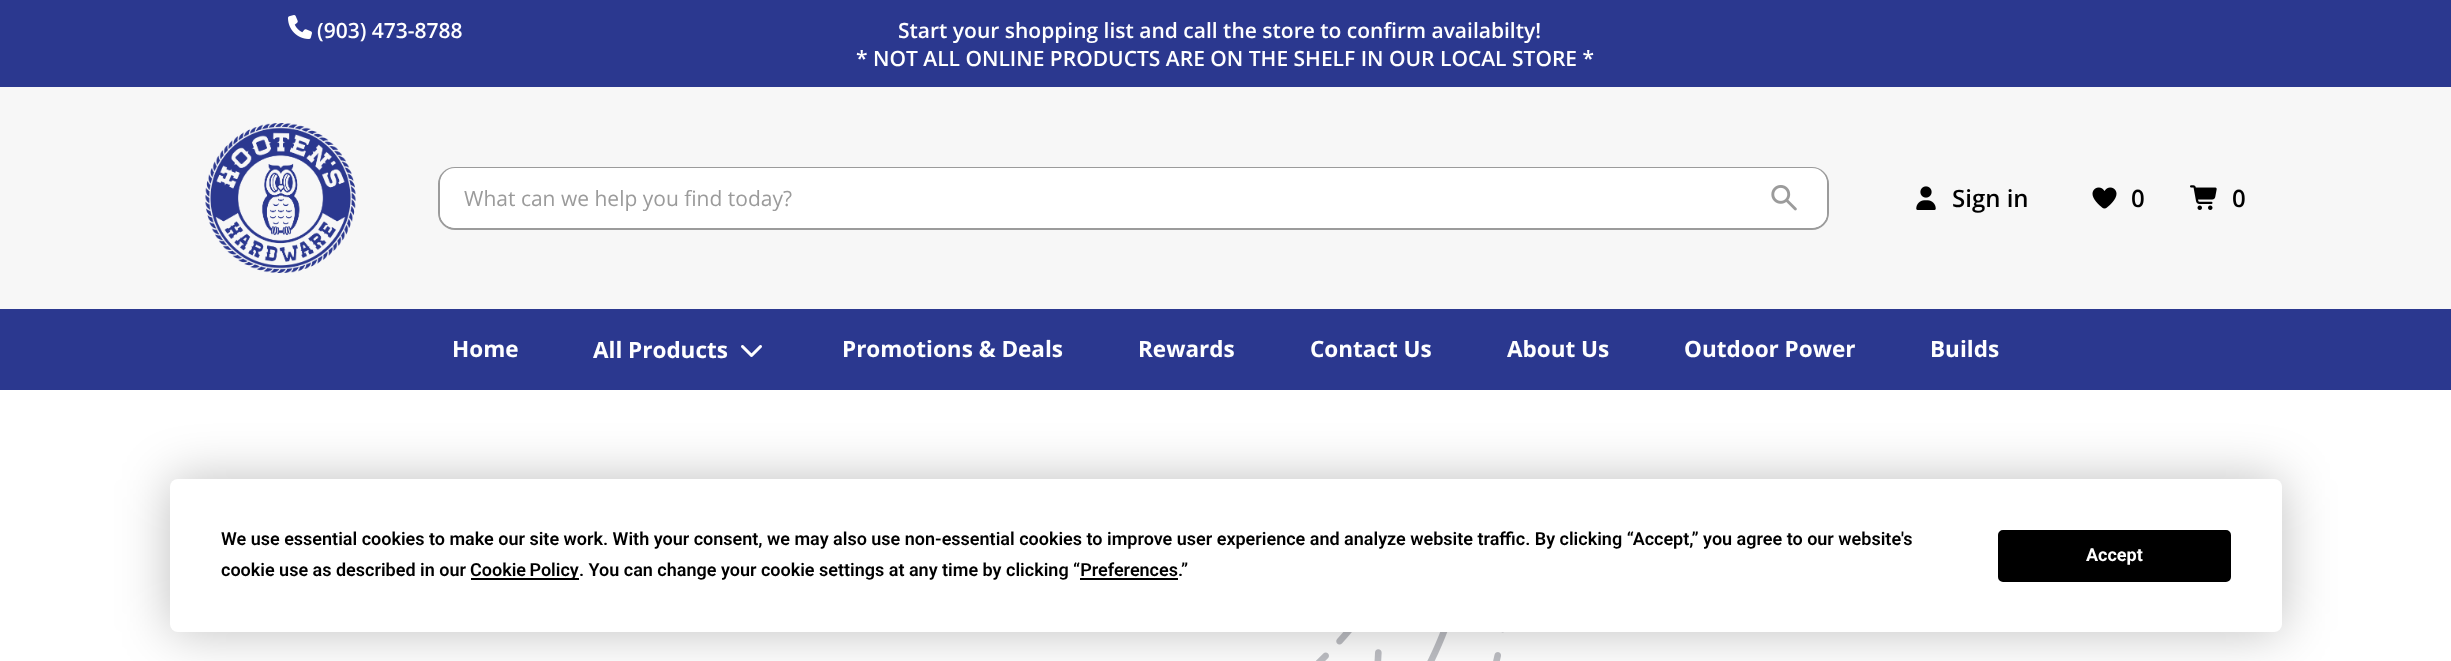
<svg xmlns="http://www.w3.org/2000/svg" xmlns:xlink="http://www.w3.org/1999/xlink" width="2451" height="661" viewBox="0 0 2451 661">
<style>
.cls-1{font:600 21px Open Sans;fill:#ffffff}
.cls-2{font:21px Open Sans;fill:#9b9b9b}
.cls-3{font:600 24px Open Sans;fill:#000000}
.cls-4{font:bold 22.5px Open Sans;fill:#ffffff}
.cls-5{font:600 18px Roboto;fill:#000000}
.cls-6{font:bold 18px Roboto;fill:#ffffff}
</style>
<rect width="100%" height="100%" fill="#ffffff"/>
<rect fill="#2b388f" x="0" y="0" width="2451" height="87"/>
<image xlink:href="image0.png" x="288" y="15" width="24" height="24"/>
<rect fill="#f7f7f7" x="0" y="87" width="2451" height="222"/>
<image xlink:href="image1.png" x="205" y="123" width="151" height="150"/>
<rect fill="none" stroke="#9b9b9b" stroke-width="2" x="439" y="168" width="1389" height="61" rx="16"/>
<rect fill="#ffffff" x="440" y="168" width="1387" height="60" rx="15"/>
<image xlink:href="image2.png" x="1771" y="185" width="26" height="26"/>
<image xlink:href="image3.png" x="1916" y="186" width="20" height="24"/>
<image xlink:href="image4.png" x="2092" y="187" width="25" height="22"/>
<image xlink:href="image5.png" x="2190" y="185" width="27" height="25"/>
<rect fill="#2b388f" x="0" y="309" width="2451" height="81"/>
<image xlink:href="image6.png" x="741" y="345" width="21" height="12"/>
<image xlink:href="image7.png" x="1316" y="632" width="188" height="29"/>
<rect fill="#000000" fill-opacity="0.25" filter="blur(26px)" x="170" y="479" width="2112" height="153" rx="8"/>
<rect fill="#ffffff" x="170" y="479" width="2112" height="153" rx="8"/>
<rect fill="#000000" x="471" y="578" width="108" height="2"/>
<rect fill="#000000" x="1080" y="578" width="98" height="2"/>
<rect fill="#000000" stroke="#000000" stroke-width="2" x="1999" y="531" width="231" height="50" rx="4"/>
<text class="cls-1" x="317" y="38">(903) 473-8788</text>
<text class="cls-1" x="898" y="38">Start your shopping list and call the store to confirm availabilty!</text>
<text class="cls-1" x="856" y="66">* NOT ALL ONLINE PRODUCTS ARE ON THE SHELF IN OUR LOCAL STORE *</text>
<text class="cls-2" x="464" y="206">What can we help you find today?</text>
<text class="cls-3" x="1952" y="207">Sign in</text>
<text class="cls-3" x="2131" y="207">0</text>
<text class="cls-3" x="2232" y="207">0</text>
<text class="cls-4" x="452" y="357">Home</text>
<text class="cls-4" x="593" y="358">All Products</text>
<text class="cls-4" x="842" y="357">Promotions &amp; Deals</text>
<text class="cls-4" x="1138" y="357">Rewards</text>
<text class="cls-4" x="1310" y="357">Contact Us</text>
<text class="cls-4" x="1507" y="357">About Us</text>
<text class="cls-4" x="1684" y="357">Outdoor Power</text>
<text class="cls-4" x="1930" y="357">Builds</text>
<text class="cls-5"><tspan x="221" y="545">We use essential cookies to make our site work. With your consent, we may also use non-essential cookies to improve user experience and analyze website traffic. By clicking “Accept,” you agree to our website's</tspan><tspan x="221" y="576">cookie use as described in our</tspan></text>
<text class="cls-5" x="470" y="576" word-spacing="-1">Cookie Policy</text>
<text class="cls-5" x="579" y="576">. You can change your cookie settings at any time by clicking “Preferences.”</text>
<text class="cls-6" x="2086" y="561">Accept</text>
</svg>
